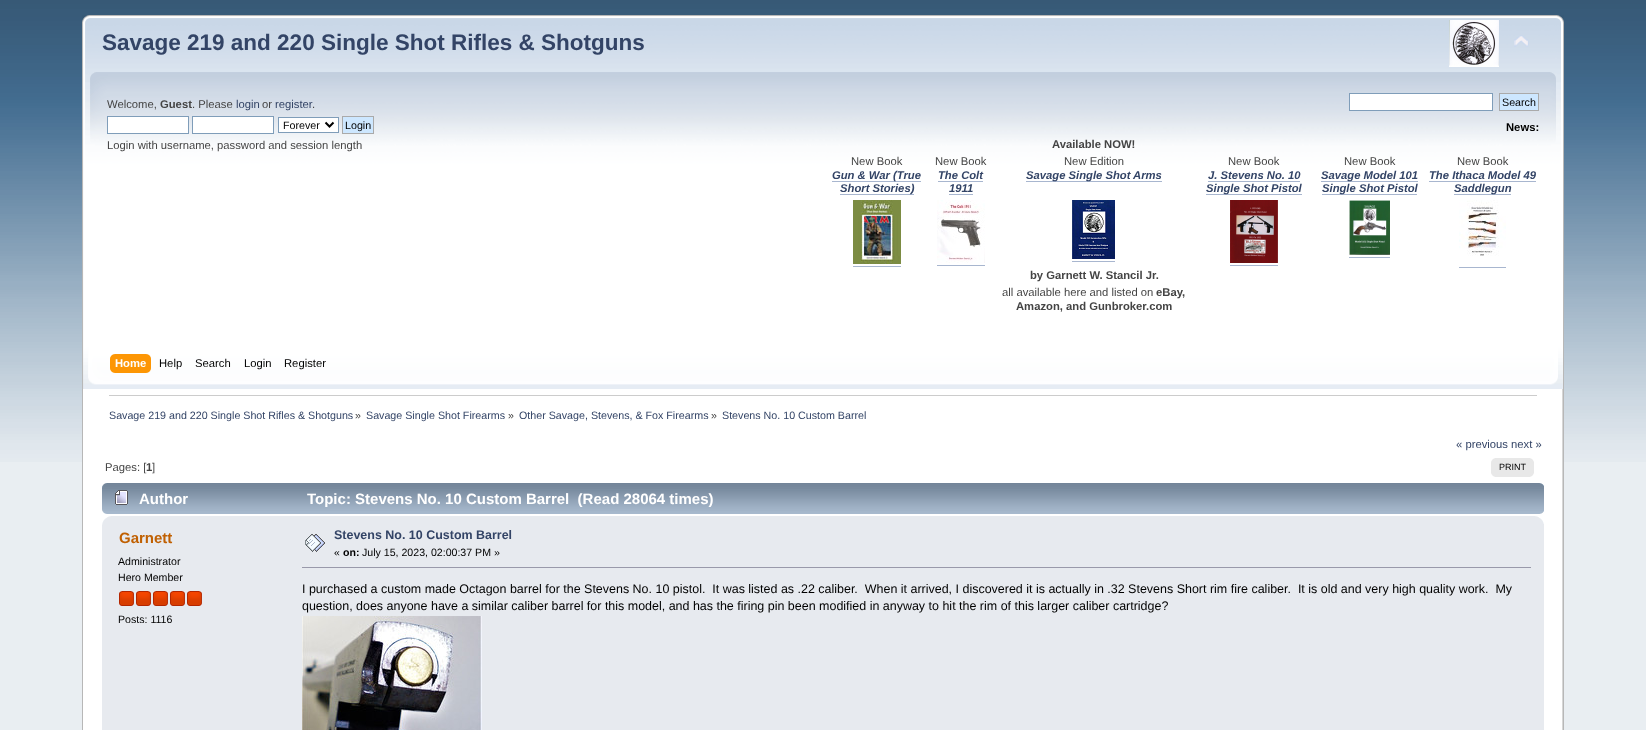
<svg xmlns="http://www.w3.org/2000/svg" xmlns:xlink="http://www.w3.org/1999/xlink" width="1646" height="730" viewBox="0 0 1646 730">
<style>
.cls-1{font:bold 22.5px Liberation Sans;fill:#334466}
.cls-2{font:11.25px Liberation Sans;fill:#444444}
.cls-3{font:bold 11.25px Liberation Sans;fill:#444444}
.cls-4{font:11.25px Liberation Sans;fill:#334466}
.cls-5{font:10.7px Liberation Sans;fill:#000000}
.cls-6{font:bold 11.25px Liberation Sans;fill:#000000}
.cls-7{font:italic bold 11.25px Liberation Sans;fill:#334466}
.cls-8{font:bold 11.25px Liberation Sans;fill:#ffffff}
.cls-9{font:11.25px Liberation Sans;fill:#000000}
.cls-10{font:10.7px Liberation Sans;fill:#334466}
.cls-11{font:10.7px Liberation Sans;fill:#444444}
.cls-12{font:9px Liberation Sans;fill:#000000}
.cls-13{font:bold 15px Liberation Sans;fill:#ffffff}
.cls-14{font:bold 15px Liberation Sans;fill:#c06002}
.cls-15{font:10.6px Liberation Sans;fill:#000000}
.cls-16{font:bold 12.48px Liberation Sans;fill:#334466}
.cls-17{font:bold 10.6px Liberation Sans;fill:#000000}
.cls-18{font:12.48px Liberation Sans;fill:#000000}
</style>
<rect width="100%" height="100%" fill="#e9eef2"/>
<image xlink:href="image0.png" x="0" y="0" width="1646" height="462"/>
<image xlink:href="image1.png" x="82" y="15" width="1468" height="374"/>
<image xlink:href="image2.png" x="1550" y="15" width="14" height="374"/>
<image xlink:href="image3.png" x="1449" y="20" width="50" height="47"/>
<image xlink:href="image4.png" x="1514" y="35" width="15" height="12"/>
<rect fill="#ffffff" stroke="#7f9db9" x="107.5" y="116.5" width="81" height="17"/>
<rect fill="#ffffff" stroke="#7f9db9" x="192.5" y="116.5" width="81" height="17"/>
<rect fill="#ffffff" stroke="#7f9db9" x="278.5" y="117.5" width="60" height="15"/>
<path fill="none" stroke="#000000" stroke-width="2" d="M325.5 122.5L329.5 126.5L333.5 122.5"/>
<rect fill="#cde7ff" stroke="#aaaaaa" x="342.5" y="116.5" width="31" height="17"/>
<rect fill="#ffffff" stroke="#7f9db9" x="1349.5" y="93.5" width="143" height="17"/>
<rect fill="#cde7ff" stroke="#aaaaaa" x="1499.5" y="93.5" width="39" height="17"/>
<rect fill="#a8b6cf" x="832" y="181" width="89" height="1"/>
<rect fill="#a8b6cf" x="840" y="194" width="74" height="1"/>
<rect fill="#a8b6cf" x="938" y="181" width="45" height="1"/>
<rect fill="#a8b6cf" x="949" y="194" width="24" height="1"/>
<rect fill="#a8b6cf" x="1026" y="181" width="136" height="1"/>
<rect fill="#a8b6cf" x="1208" y="181" width="92" height="1"/>
<rect fill="#a8b6cf" x="1206" y="194" width="96" height="1"/>
<rect fill="#a8b6cf" x="1321" y="181" width="97" height="1"/>
<rect fill="#a8b6cf" x="1322" y="194" width="95" height="1"/>
<rect fill="#a8b6cf" x="1429" y="181" width="107" height="1"/>
<rect fill="#a8b6cf" x="1454" y="194" width="57" height="1"/>
<image xlink:href="image5.png" x="853" y="200" width="48" height="64"/>
<rect fill="#a8b6cf" x="853" y="266" width="48" height="1"/>
<image xlink:href="image6.png" x="937" y="200" width="48" height="63"/>
<rect fill="#a8b6cf" x="937" y="265" width="48" height="1"/>
<image xlink:href="image7.png" x="1072" y="200" width="43" height="59"/>
<rect fill="#a8b6cf" x="1072" y="261" width="43" height="1"/>
<image xlink:href="image8.png" x="1230" y="200" width="48" height="63"/>
<rect fill="#a8b6cf" x="1230" y="265" width="48" height="1"/>
<image xlink:href="image9.png" x="1349" y="200" width="41" height="55"/>
<rect fill="#a8b6cf" x="1349" y="257" width="41" height="1"/>
<image xlink:href="image10.png" x="1459" y="200" width="47" height="56"/>
<rect fill="#a8b6cf" x="1459" y="267" width="47" height="1"/>
<image xlink:href="image11.png" x="115" y="354" width="36" height="19"/>
<image xlink:href="image12.png" x="110" y="354" width="5" height="19"/>
<rect fill="#ffffff" x="83" y="389" width="1479" height="341"/>
<rect fill="#b7b7b7" x="82" y="389" width="1" height="341"/>
<image xlink:href="image13.png" x="1562" y="389" width="2" height="341"/>
<rect fill="#cccccc" x="109" y="395" width="1428" height="1"/>
<rect fill="#e8e8e8" x="1495" y="458" width="35" height="19"/>
<image xlink:href="image14.png" x="1491" y="458" width="4" height="19"/>
<image xlink:href="image15.png" x="1530" y="458" width="4" height="19"/>
<image xlink:href="image16.png" x="102" y="483" width="1437" height="31"/>
<image xlink:href="image17.png" x="1539" y="483" width="5" height="31"/>
<image xlink:href="image18.png" x="115" y="490" width="13" height="15"/>
<rect fill="#e7eaef" x="102" y="516" width="1442" height="214"/>
<image xlink:href="image19.png" x="102" y="516" width="9" height="9"/>
<image xlink:href="image20.png" x="1535" y="516" width="9" height="8"/>
<image xlink:href="image21.png" x="119" y="591" width="15" height="15"/>
<image xlink:href="image21.png" x="136" y="591" width="15" height="15"/>
<image xlink:href="image21.png" x="153" y="591" width="15" height="15"/>
<image xlink:href="image21.png" x="170" y="591" width="15" height="15"/>
<image xlink:href="image21.png" x="187" y="591" width="15" height="15"/>
<image xlink:href="image22.png" x="305" y="534" width="20" height="18"/>
<rect fill="#9999aa" x="302" y="567" width="1229" height="1"/>
<image xlink:href="image23.png" x="302" y="616" width="180" height="114"/>
<text class="cls-1" x="102" y="50">Savage 219 and 220 Single Shot Rifles &amp; Shotguns</text>
<text class="cls-2" x="107" y="108">Welcome,</text>
<text class="cls-3" x="160" y="108">Guest</text>
<text class="cls-2" x="192" y="108">. Please</text>
<text class="cls-4" x="236" y="108">login</text>
<text class="cls-2" x="262" y="108">or</text>
<text class="cls-4" x="275" y="108">register</text>
<text class="cls-2" x="312" y="108">.</text>
<text class="cls-5" x="283" y="129">Forever</text>
<text class="cls-5" x="345" y="129">Login</text>
<text class="cls-2" x="107" y="149">Login with username, password and session length</text>
<text class="cls-5" x="1502" y="106">Search</text>
<text class="cls-6" x="1506" y="131">News:</text>
<text class="cls-3" x="1052" y="148">Available NOW!</text>
<text class="cls-2" x="851" y="165">New Book</text>
<text class="cls-7" x="832" y="179">Gun &amp; War (True</text>
<text class="cls-7" x="840" y="192">Short Stories)</text>
<text class="cls-2" x="935" y="165">New Book</text>
<text class="cls-7" x="938" y="179">The Colt</text>
<text class="cls-7" x="949" y="192">1911</text>
<text class="cls-2" x="1064" y="165">New Edition</text>
<text class="cls-7" x="1026" y="179">Savage Single Shot Arms</text>
<text class="cls-2" x="1228" y="165">New Book</text>
<text class="cls-7" x="1208" y="179">J. Stevens No. 10</text>
<text class="cls-7" x="1206" y="192">Single Shot Pistol</text>
<text class="cls-2" x="1344" y="165">New Book</text>
<text class="cls-7" x="1321" y="179">Savage Model 101</text>
<text class="cls-7" x="1322" y="192">Single Shot Pistol</text>
<text class="cls-2" x="1457" y="165">New Book</text>
<text class="cls-7" x="1429" y="179">The Ithaca Model 49</text>
<text class="cls-7" x="1454" y="192">Saddlegun</text>
<text class="cls-3" x="1030" y="279">by Garnett W. Stancil Jr.</text>
<text class="cls-2" x="1002" y="296">all available here and listed on</text>
<text class="cls-3" x="1156" y="296">eBay,</text>
<text class="cls-3" x="1016" y="310">Amazon, and Gunbroker.com</text>
<text class="cls-8" x="115" y="367">Home</text>
<text class="cls-9" x="159" y="367">Help</text>
<text class="cls-9" x="195" y="367">Search</text>
<text class="cls-9" x="244" y="367">Login</text>
<text class="cls-9" x="284" y="367">Register</text>
<text class="cls-10" x="109" y="419">Savage 219 and 220 Single Shot Rifles &amp; Shotguns</text>
<text class="cls-11" x="355" y="419">»</text>
<text class="cls-10" x="366" y="419">Savage Single Shot Firearms</text>
<text class="cls-11" x="508" y="419">»</text>
<text class="cls-10" x="519" y="419">Other Savage, Stevens, &amp; Fox Firearms</text>
<text class="cls-11" x="711" y="419">»</text>
<text class="cls-10" x="722" y="419">Stevens No. 10 Custom Barrel</text>
<text class="cls-4" x="1456" y="448">« previous next »</text>
<text class="cls-2" x="105" y="471">Pages: [</text>
<text class="cls-3" x="146" y="471">1</text>
<text class="cls-2" x="152" y="471">]</text>
<text class="cls-12" x="1499" y="470">PRINT</text>
<text class="cls-13" x="139" y="504">Author</text>
<text class="cls-13" xml:space="preserve" x="307" y="504">Topic: Stevens No. 10 Custom Barrel  (Read 28064 times)</text>
<text class="cls-14" x="119" y="543">Garnett</text>
<text class="cls-15"><tspan x="118" y="565">Administrator</tspan><tspan x="118" y="581">Hero Member</tspan></text>
<text class="cls-15" x="118" y="623">Posts: 1116</text>
<text class="cls-16" x="334" y="539">Stevens No. 10 Custom Barrel</text>
<text class="cls-15" x="334" y="556">«</text>
<text class="cls-17" x="343" y="556">on:</text>
<text class="cls-15" x="362" y="556">July 15, 2023, 02:00:37 PM »</text>
<text class="cls-18" xml:space="preserve"><tspan x="302" y="593">I purchased a custom made Octagon barrel for the Stevens No. 10 pistol.  It was listed as .22 caliber.  When it arrived, I discovered it is actually in .32 Stevens Short rim fire caliber.  It is old and very high quality work.  My</tspan><tspan x="302" y="610">question, does anyone have a similar caliber barrel for this model, and has the firing pin been modified in anyway to hit the rim of this larger caliber cartridge?</tspan></text>
</svg>
